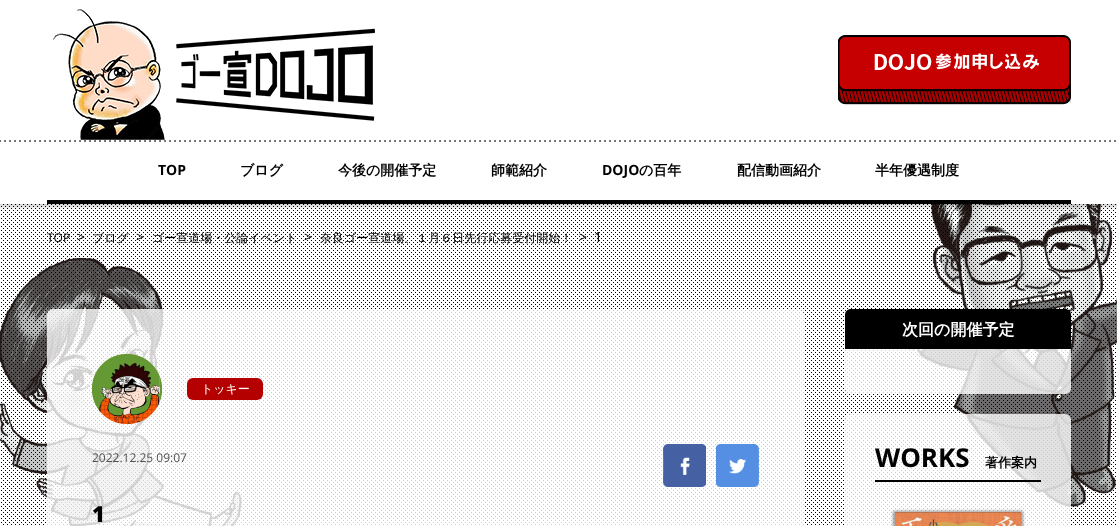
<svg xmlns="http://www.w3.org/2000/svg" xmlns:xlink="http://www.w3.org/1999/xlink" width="1117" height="526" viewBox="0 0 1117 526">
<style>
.cls-1{font:bold 14px Open Sans;fill:#000000}
.cls-2{font:bold 14px WenQuanYi Zen Hei;fill:#000000}
.cls-3{font:12px Open Sans;fill:#000000}
.cls-4{font:14px Open Sans;fill:#000000}
.cls-5{font:500 12px WenQuanYi Zen Hei;fill:#000000}
.cls-6{font:500 12px WenQuanYi Zen Hei;fill:#ffffff}
.cls-7{font:12px Open Sans;fill:#515151}
.cls-8{font:800 22px Open Sans;fill:#000000}
.cls-9{font:bold 16px WenQuanYi Zen Hei;fill:#ffffff}
.cls-10{font:bold 26px Open Sans;fill:#000000}
.cls-11{font:bold 13px WenQuanYi Zen Hei;fill:#000000}
</style>
<rect width="100%" height="100%" fill="#ffffff"/>
<image xlink:href="image0.png" x="0" y="204" width="1117" height="322"/>
<image xlink:href="image1.png" x="1" y="204" width="1115" height="321"/>
<rect fill="#000000" fill-opacity="0.2" filter="blur(2px)" x="-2" y="-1" width="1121" height="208"/>
<rect fill="#ffffff" x="0" y="0" width="1117" height="204"/>
<image xlink:href="image2.png" x="53" y="9" width="322" height="131"/>
<image xlink:href="image3.png" x="838" y="35" width="233" height="70"/>
<image xlink:href="image4.png" x="0" y="140" width="1116" height="2"/>
<rect fill="#000000" x="47" y="200" width="1024" height="4"/>
<rect fill="#ffffff" fill-opacity="0.8" x="47" y="309" width="757" height="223" rx="6"/>
<image xlink:href="image5.png" x="92" y="354" width="70" height="70"/>
<rect fill="#b50000" x="187" y="378" width="76" height="22" rx="6"/>
<image xlink:href="image6.png" x="663" y="444" width="43" height="43"/>
<image xlink:href="image7.png" x="716" y="444" width="43" height="43"/>
<path fill="#000000" d="M851 309H1065C1068.5 309 1071 311.5 1071 315V349H845V315C845 311.5 847.5 309 851 309Z"/>
<path fill="#ffffff" fill-opacity="0.8" d="M845 349H1071V388C1071 391.5 1068.5 394 1065 394H851C847.5 394 845 391.5 845 388Z"/>
<rect fill="#ffffff" fill-opacity="0.8" x="845" y="414" width="226" height="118" rx="6"/>
<rect fill="#000000" x="875" y="480" width="166" height="2"/>
<rect fill="#000000" fill-opacity="0.4" filter="blur(1.5px)" x="893" y="511" width="130" height="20"/>
<image xlink:href="image8.png" x="895" y="512" width="126" height="14"/>
<text class="cls-1" x="158" y="175">TOP</text>
<text class="cls-2" x="240" y="175">ブログ</text>
<text class="cls-2" x="338" y="175">今後の開催予定</text>
<text class="cls-2" x="491" y="175">師範紹介</text>
<text class="cls-1" x="602" y="175">DOJO</text>
<text class="cls-2" x="639" y="175">の百年</text>
<text class="cls-2" x="737" y="175">配信動画紹介</text>
<text class="cls-2" x="875" y="175">半年優遇制度</text>
<text class="cls-3" x="47" y="242">TOP</text>
<text class="cls-4" x="77" y="242">&gt;</text>
<text class="cls-5" x="92" y="242">ブログ</text>
<text class="cls-4" x="136" y="242">&gt;</text>
<text class="cls-5" x="152" y="242">ゴー宣道場・公論イベント</text>
<text class="cls-4" x="304" y="242">&gt;</text>
<text class="cls-5" x="320" y="242">奈良ゴー宣道場、１月６日先行応募受付開始！</text>
<text class="cls-4" x="579" y="242">&gt;</text>
<text class="cls-4" x="594" y="242">1</text>
<text class="cls-6" x="201" y="393">トッキー</text>
<text class="cls-7" x="92" y="462">2022.12.25 09:07</text>
<text class="cls-8" x="92" y="522">1</text>
<text class="cls-9" x="902" y="335">次回の開催予定</text>
<text class="cls-10" x="875" y="467">WORKS</text>
<text class="cls-11" x="985" y="467">著作案内</text>
</svg>
